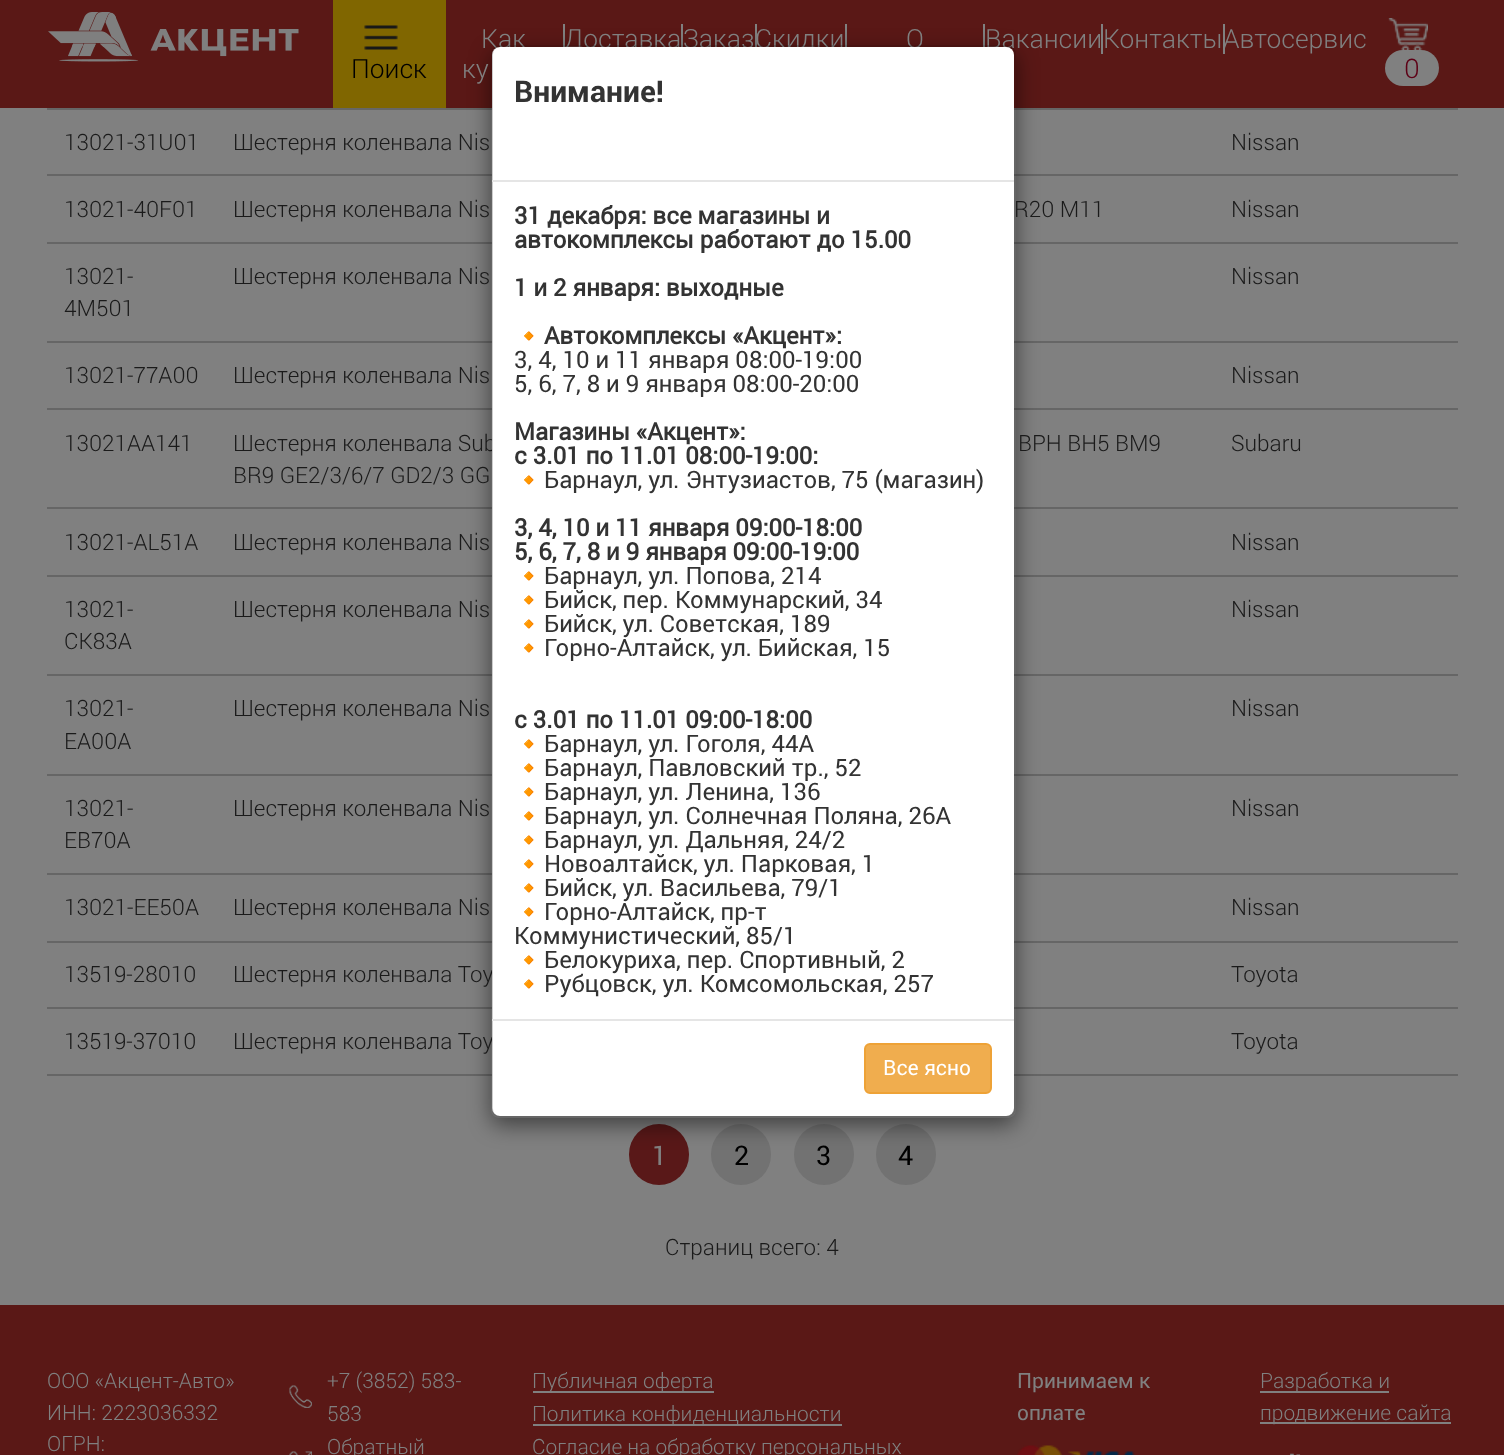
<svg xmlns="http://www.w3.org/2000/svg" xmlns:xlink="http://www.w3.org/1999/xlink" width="1504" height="1455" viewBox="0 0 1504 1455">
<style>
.cls-1{font:300 26.5px Roboto;fill:#808080}
.cls-2{font:300 26.5px Roboto;fill:#000000}
.cls-3{font:300 27px Roboto;fill:#5d0016}
.cls-4{font:300 22.5px Roboto;fill:#1a1a1a}
.cls-5{font:24px Roboto;fill:#333333}
.cls-6{font:24px Noto Color Emoji;fill:#333333}
.cls-7{font:bold 24px 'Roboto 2';fill:#333333}
.cls-8{font:bold 24px Noto Color Emoji;fill:#333333}
.cls-9{font:21px Roboto;fill:#ffffff}
.cls-10{font:bold 30px Roboto;fill:#333333}
.cls-11{font:27px Roboto;fill:#808080}
.cls-12{font:27px Roboto;fill:#000000}
.cls-13{font:300 21px Roboto;fill:#808080}
.cls-14{font:21px Roboto;fill:#808080}
</style>
<defs>
<clipPath id="clip1"><path d="M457 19H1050V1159H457ZM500 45H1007C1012 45 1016 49 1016 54V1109C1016 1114 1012 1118 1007 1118H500C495 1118 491 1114 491 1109V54C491 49 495 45 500 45Z" clip-rule="evenodd"/></clipPath>
</defs>
<rect width="100%" height="100%" fill="#808080"/>
<rect fill="#5a1816" x="0" y="0" width="1504" height="108"/>
<image xlink:href="image0.png" x="48" y="12" width="251" height="50"/>
<rect fill="#808080" x="563" y="24" width="2" height="30"/>
<rect fill="#808080" x="681" y="24" width="2" height="30"/>
<rect fill="#808080" x="755" y="24" width="2" height="30"/>
<rect fill="#808080" x="845" y="24" width="2" height="23"/>
<rect fill="#808080" x="983" y="24" width="2" height="30"/>
<rect fill="#808080" x="1101" y="24" width="2" height="30"/>
<rect fill="#808080" x="1223" y="24" width="2" height="30"/>
<rect fill="#806600" x="333" y="0" width="113" height="108"/>
<image xlink:href="image1.png" x="364" y="25" width="34" height="25"/>
<image xlink:href="image2.png" x="1388" y="18" width="40" height="33"/>
<rect fill="#808080" x="1385" y="50" width="54" height="36" rx="18"/>
<rect fill="#666666" x="47" y="108" width="1411" height="2"/>
<rect fill="#666666" x="47" y="174" width="1411" height="2"/>
<rect fill="#666666" x="47" y="242" width="1411" height="2"/>
<rect fill="#666666" x="47" y="341" width="1411" height="2"/>
<rect fill="#666666" x="47" y="408" width="1411" height="2"/>
<rect fill="#666666" x="47" y="507" width="1411" height="2"/>
<rect fill="#666666" x="47" y="575" width="1411" height="2"/>
<rect fill="#666666" x="47" y="674" width="1411" height="2"/>
<rect fill="#666666" x="47" y="774" width="1411" height="2"/>
<rect fill="#666666" x="47" y="873" width="1411" height="2"/>
<rect fill="#666666" x="47" y="941" width="1411" height="2"/>
<rect fill="#666666" x="47" y="1007" width="1411" height="2"/>
<rect fill="#666666" x="47" y="1074" width="1411" height="2"/>
<rect fill="#591818" x="629" y="1124" width="60" height="61" rx="30"/>
<rect fill="#727272" x="711" y="1124" width="60" height="61" rx="30"/>
<rect fill="#727272" x="794" y="1124" width="60" height="61" rx="30"/>
<rect fill="#727272" x="876" y="1124" width="60" height="61" rx="30"/>
<g clip-path="url(#clip1)">
<rect fill="#000000" fill-opacity="0.5" filter="blur(11px)" x="491" y="53" width="525" height="1072" rx="9"/>
</g>
<rect fill="#5a1816" x="0" y="1305" width="1504" height="150"/>
<image xlink:href="image3.png" x="289" y="1385" width="23" height="23"/>
<image xlink:href="image4.png" x="289" y="1451" width="23" height="4"/>
<rect fill="#808080" x="533" y="1391" width="181" height="2"/>
<rect fill="#808080" x="533" y="1424" width="309" height="2"/>
<image xlink:href="image5.png" x="1017" y="1445" width="45" height="10"/>
<image xlink:href="image6.png" x="1068" y="1451" width="67" height="4"/>
<rect fill="#808080" x="1260" y="1391" width="129" height="2"/>
<rect fill="#808080" x="1260" y="1422" width="191" height="2"/>
<image xlink:href="image7.png" x="1290" y="1453" width="11" height="2"/>
<text class="cls-1" x="481" y="48">Как</text>
<text class="cls-1" x="462" y="78">ку</text>
<text class="cls-1" x="564" y="48">Доставка</text>
<text class="cls-1" x="683" y="48">Заказ</text>
<text class="cls-1" x="755" y="48">Скидки</text>
<text class="cls-1" x="906" y="48">О</text>
<text class="cls-1" x="985" y="48">Вакансии</text>
<text class="cls-1" x="1103" y="48">Контакты</text>
<text class="cls-1" x="1223" y="48">Автосервис</text>
<text class="cls-2" x="351" y="78">Поиск</text>
<text class="cls-3" x="1404" y="78">0</text>
<text class="cls-4" x="64" y="150">13021-31U01</text>
<text class="cls-4" x="233" y="150">Шестерня коленвала Nis</text>
<text class="cls-4" x="1231" y="150">Nissan</text>
<text class="cls-4" x="64" y="217">13021-40F01</text>
<text class="cls-4" x="233" y="217">Шестерня коленвала Nis</text>
<text class="cls-4" x="1014" y="217">R20 M11</text>
<text class="cls-4" x="1231" y="217">Nissan</text>
<text class="cls-4"><tspan x="64" y="284">13021-</tspan><tspan x="64" y="316">4M501</tspan></text>
<text class="cls-4" x="233" y="284">Шестерня коленвала Nis</text>
<text class="cls-4" x="1231" y="284">Nissan</text>
<text class="cls-4" x="64" y="383">13021-77A00</text>
<text class="cls-4" x="233" y="383">Шестерня коленвала Nis</text>
<text class="cls-4" x="1231" y="383">Nissan</text>
<text class="cls-4" x="64" y="451">13021AA141</text>
<text class="cls-4" x="233" y="451">Шестерня коленвала Sub</text>
<text class="cls-4" x="1018" y="451">BPH BH5 BM9</text>
<text class="cls-4" x="233" y="483">BR9 GE2/3/6/7 GD2/3 GG</text>
<text class="cls-4" x="1231" y="451">Subaru</text>
<text class="cls-4" x="64" y="550">13021-AL51A</text>
<text class="cls-4" x="233" y="550">Шестерня коленвала Nis</text>
<text class="cls-4" x="1231" y="550">Nissan</text>
<text class="cls-4"><tspan x="64" y="617">13021-</tspan><tspan x="64" y="649">CK83A</tspan></text>
<text class="cls-4" x="233" y="617">Шестерня коленвала Nis</text>
<text class="cls-4" x="1231" y="617">Nissan</text>
<text class="cls-4"><tspan x="64" y="716">13021-</tspan><tspan x="64" y="749">EA00A</tspan></text>
<text class="cls-4" x="233" y="716">Шестерня коленвала Nis</text>
<text class="cls-4" x="1231" y="716">Nissan</text>
<text class="cls-4"><tspan x="64" y="816">13021-</tspan><tspan x="64" y="848">EB70A</tspan></text>
<text class="cls-4" x="233" y="816">Шестерня коленвала Nis</text>
<text class="cls-4" x="1231" y="816">Nissan</text>
<text class="cls-4" x="64" y="915">13021-EE50A</text>
<text class="cls-4" x="233" y="915">Шестерня коленвала Nis</text>
<text class="cls-4" x="1231" y="915">Nissan</text>
<text class="cls-4" x="64" y="982">13519-28010</text>
<text class="cls-4" x="233" y="982">Шестерня коленвала Toy</text>
<text class="cls-4" x="1231" y="982">Toyota</text>
<text class="cls-4" x="64" y="1049">13519-37010</text>
<text class="cls-4" x="233" y="1049">Шестерня коленвала Toy</text>
<rect fill="#ffffff" x="492" y="47" width="522" height="1069" rx="8"/>
<rect fill="none" stroke="#000000" stroke-opacity="0.2" stroke-width="2" x="492" y="46" width="523" height="1071" rx="8"/>
<text class="cls-5" x="544" y="992">Рубцовск, ул. Комсомольская, 257</text>
<text class="cls-6" x="514" y="992">🔸</text>
<text class="cls-5" x="544" y="968">Белокуриха, пер. Спортивный, 2</text>
<text class="cls-6" x="514" y="968">🔸</text>
<text class="cls-5" x="514" y="944">Коммунистический, 85/1</text>
<text class="cls-5" x="544" y="920">Горно-Алтайск, пр-т</text>
<text class="cls-6" x="514" y="920">🔸</text>
<text class="cls-5" x="544" y="896">Бийск, ул. Васильева, 79/1</text>
<text class="cls-6" x="514" y="896">🔸</text>
<text class="cls-5" x="544" y="872">Новоалтайск, ул. Парковая, 1</text>
<text class="cls-6" x="514" y="872">🔸</text>
<text class="cls-5" x="544" y="848">Барнаул, ул. Дальняя, 24/2</text>
<text class="cls-6" x="514" y="848">🔸</text>
<text class="cls-5" x="544" y="824">Барнаул, ул. Солнечная Поляна, 26А</text>
<text class="cls-6" x="514" y="824">🔸</text>
<text class="cls-5" x="544" y="800">Барнаул, ул. Ленина, 136</text>
<text class="cls-6" x="514" y="800">🔸</text>
<text class="cls-5" x="544" y="776">Барнаул, Павловский тр., 52</text>
<text class="cls-6" x="514" y="776">🔸</text>
<text class="cls-5" x="544" y="752">Барнаул, ул. Гоголя, 44А</text>
<text class="cls-6" x="514" y="752">🔸</text>
<text class="cls-7" x="514" y="728">с 3.01 по 11.01 09:00-18:00</text>
<text class="cls-5" x="544" y="656">Горно-Алтайск, ул. Бийская, 15</text>
<text class="cls-6" x="514" y="656">🔸</text>
<text class="cls-5" x="544" y="632">Бийск, ул. Советская, 189</text>
<text class="cls-6" x="514" y="632">🔸</text>
<text class="cls-5" x="544" y="608">Бийск, пер. Коммунарский, 34</text>
<text class="cls-6" x="514" y="608">🔸</text>
<text class="cls-5" x="544" y="584">Барнаул, ул. Попова, 214</text>
<text class="cls-6" x="514" y="584">🔸</text>
<text class="cls-7" x="514" y="560">5, 6, 7, 8 и 9 января 09:00-19:00</text>
<text class="cls-7" x="514" y="536">3, 4, 10 и 11 января 09:00-18:00</text>
<text class="cls-5" x="544" y="488">Барнаул, ул. Энтузиастов, 75 (магазин)</text>
<text class="cls-6" x="514" y="488">🔸</text>
<text class="cls-7" x="514" y="464">с 3.01 по 11.01 08:00-19:00:</text>
<text class="cls-7" x="514" y="440">Магазины «Акцент»:</text>
<text class="cls-5" x="514" y="392">5, 6, 7, 8 и 9 января 08:00-20:00</text>
<text class="cls-5" x="514" y="368">3, 4, 10 и 11 января 08:00-19:00</text>
<text class="cls-7" x="544" y="344">Автокомплексы «Акцент»:</text>
<text class="cls-8" x="514" y="344">🔸</text>
<text class="cls-7" x="514" y="296">1 и 2 января: выходные</text>
<text class="cls-7" x="514" y="248">автокомплексы работают до 15.00</text>
<text class="cls-7" x="514" y="224">31 декабря: все магазины и</text>
<rect fill="#f0ad4e" stroke="#eea236" stroke-width="2" x="865" y="1044" width="126" height="49" rx="5"/>
<text class="cls-9" x="883" y="1075">Все ясно</text>
<text class="cls-10" x="514" y="102">Внимание!</text>
<rect fill="#e5e5e5" x="492" y="1019" width="522" height="2"/>
<rect fill="#e5e5e5" x="492" y="180" width="522" height="2"/>
<text class="cls-4" x="1231" y="1049">Toyota</text>
<text class="cls-11" x="652" y="1165">1</text>
<text class="cls-12" x="734" y="1165">2</text>
<text class="cls-12" x="816" y="1165">3</text>
<text class="cls-12" x="898" y="1165">4</text>
<text class="cls-4" x="665" y="1255">Страниц всего: 4</text>
<text class="cls-13"><tspan x="47" y="1388">ООО «Акцент-Авто»</tspan><tspan x="47" y="1420">ИНН: 2223036332</tspan><tspan x="47" y="1451">ОГРН:</tspan></text>
<text class="cls-13"><tspan x="327" y="1388">+7 (3852) 583-</tspan><tspan x="327" y="1421">583</tspan><tspan x="327" y="1454">Обратный</tspan></text>
<text class="cls-13"><tspan x="532" y="1388">Публичная оферта</tspan><tspan x="532" y="1421">Политика конфиденциальности</tspan><tspan x="532" y="1454">Согласие на обработку персональных</tspan></text>
<text class="cls-14"><tspan x="1017" y="1388">Принимаем к</tspan><tspan x="1017" y="1420">оплате</tspan></text>
<text class="cls-13"><tspan x="1260" y="1388">Разработка и</tspan><tspan x="1260" y="1420">продвижение сайта</tspan></text>
</svg>
